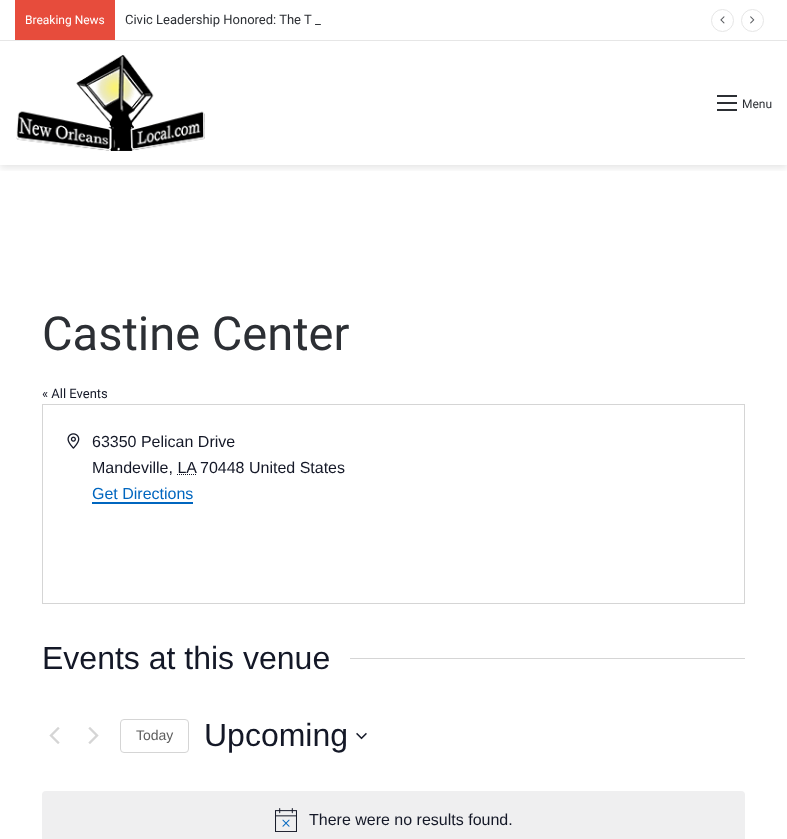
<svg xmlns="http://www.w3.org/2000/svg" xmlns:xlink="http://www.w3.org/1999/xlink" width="787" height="839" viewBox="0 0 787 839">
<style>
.cls-1{font:12px Roboto;fill:#ffffff}
.cls-2{font:13px Roboto;fill:#2c2f34}
.cls-3{font:12px Roboto;fill:#2c2f34}
.cls-4{font:47px Roboto;fill:#2c2f34}
.cls-5{font:13px Roboto;fill:#141827}
.cls-6{font:16px Liberation Sans;fill:#141827}
.cls-7{font:16px Liberation Sans;fill:#0066bf}
.cls-8{font:32px Liberation Sans;fill:#141827}
.cls-9{font:14px Liberation Sans;fill:#5d5d5d}
</style>
<defs>
<clipPath id="clip1"><rect x="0" y="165" width="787" height="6"/></clipPath>
</defs>
<rect width="100%" height="100%" fill="#ffffff"/>
<g clip-path="url(#clip1)">
<rect fill="#000000" fill-opacity="0.1" filter="blur(3.5px)" x="0" y="44" width="787" height="124"/>
</g>
<rect fill="#e6e6e6" x="0" y="40" width="787" height="1"/>
<rect fill="#e74c3c" x="15" y="0" width="100" height="40"/>
<circle fill="none" stroke="#e6e6e6" cx="722.5" cy="20.5" r="11"/>
<image xlink:href="image0.png" x="720" y="16" width="5" height="8"/>
<circle fill="none" stroke="#e6e6e6" cx="752.5" cy="20.5" r="11"/>
<image xlink:href="image1.png" x="750" y="16" width="5" height="8"/>
<image xlink:href="image2.png" x="16" y="55" width="189" height="96"/>
<rect fill="#2c2f34" x="717" y="102" width="20" height="2"/>
<rect fill="#2c2f34" x="717" y="95" width="20" height="2"/>
<rect fill="#2c2f34" x="717" y="109" width="20" height="2"/>
<rect fill="none" stroke="#d5d5d5" x="42.5" y="404.5" width="702" height="199"/>
<image xlink:href="image3.png" x="67" y="433" width="13" height="16"/>
<path fill="none" stroke="#141827" stroke-dasharray="1 1" d="M177 474.5H196"/>
<rect fill="#0066bf" x="92" y="502" width="101" height="2"/>
<rect fill="#d5d5d5" x="350" y="658" width="395" height="1"/>
<image xlink:href="image4.png" x="49" y="727" width="11" height="17"/>
<image xlink:href="image5.png" x="88" y="727" width="11" height="17"/>
<rect fill="none" stroke="#d5d5d5" x="120.5" y="719.5" width="68" height="33" rx="3.5"/>
<image xlink:href="image6.png" x="356" y="732" width="11" height="8"/>
<rect fill="#efeff0" x="42" y="791" width="703" height="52" rx="4"/>
<image xlink:href="image7.png" x="275" y="808" width="22" height="24"/>
<text class="cls-1" x="25" y="24">Breaking News</text>
<text class="cls-2" x="125" y="24">Civic Leadership Honored: The T</text>
<text class="cls-2" x="315" y="24">_</text>
<text class="cls-3" x="742" y="108">Menu</text>
<text class="cls-4" x="42" y="350">Castine Center</text>
<text class="cls-5" x="42" y="398">« All Events</text>
<text class="cls-6"><tspan x="92" y="447">63350 Pelican Drive</tspan><tspan x="92" y="473">Mandeville, LA</tspan></text>
<text class="cls-6" x="200" y="473">70448 United States</text>
<text class="cls-7" x="92" y="499">Get Directions</text>
<text class="cls-8" x="42" y="669">Events at this venue</text>
<text class="cls-9" x="136" y="740">Today</text>
<text class="cls-8" x="204" y="746">Upcoming</text>
<text class="cls-6" x="309" y="825">There were no results found.</text>
</svg>
